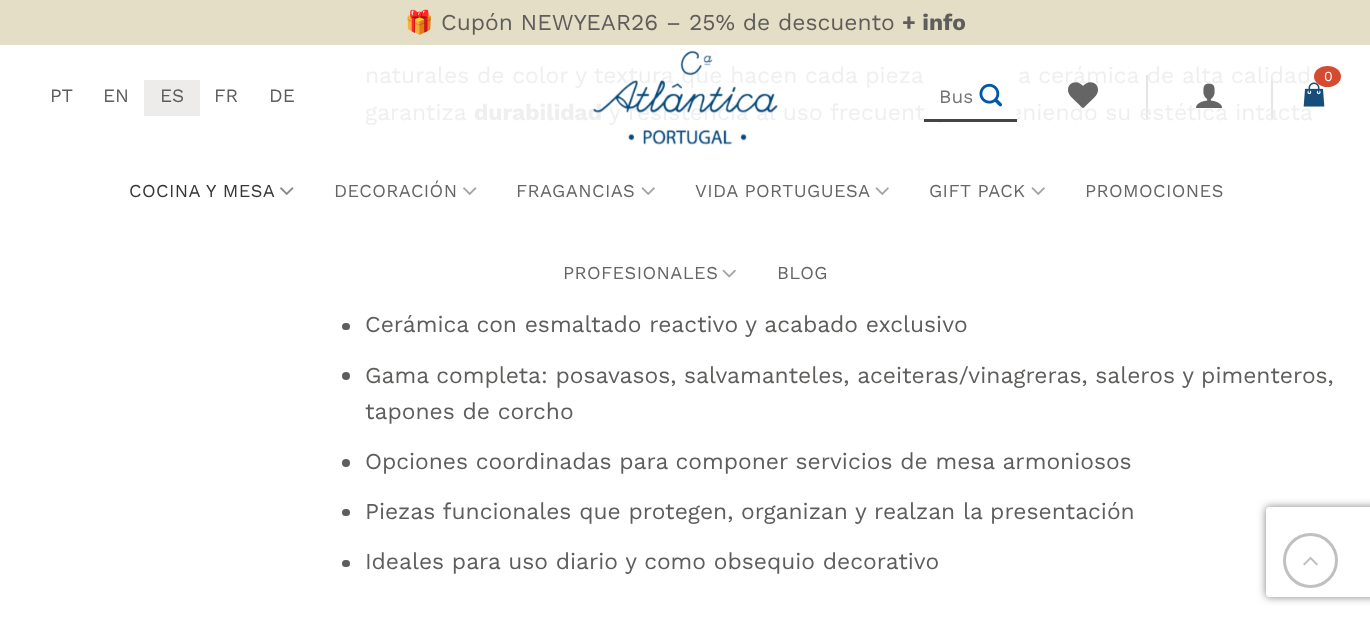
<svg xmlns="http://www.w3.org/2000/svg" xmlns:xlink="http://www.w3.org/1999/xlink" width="1370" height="617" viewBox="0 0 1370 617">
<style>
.cls-1{font:22.8px Noto Color Emoji;fill:#5e5d5b}
.cls-2{font:22.8px Work Sans;fill:#5e5d5b}
.cls-3{font:bold 22.8px Work Sans;fill:#5e5d5b}
.cls-4{font:19px Work Sans;fill:#5e5d5b}
.cls-5{font:19px Work Sans;fill:#757575}
.cls-6{font:18.25px Work Sans;letter-spacing:0.4px;fill:#363636}
.cls-7{font:18.25px Work Sans;letter-spacing:0.4px;fill:#656565}
.cls-8{font:22.8px Work Sans;fill:#efefef}
.cls-9{font:bold 22.8px Work Sans;fill:#efefef}
.cls-10{font:14px Work Sans;fill:#ffffff}
</style>
<defs>
<clipPath id="clip1"><path d="M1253 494H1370V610H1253ZM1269 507H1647C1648.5 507 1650 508.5 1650 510V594C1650 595.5 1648.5 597 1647 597H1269C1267.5 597 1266 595.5 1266 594V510C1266 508.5 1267.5 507 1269 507Z" clip-rule="evenodd"/></clipPath>
</defs>
<rect width="100%" height="100%" fill="#ffffff"/>
<rect fill="#e5dec7" x="0" y="0" width="1370" height="45"/>
<rect fill="#eeeceb" x="144" y="80" width="56" height="36"/>
<image xlink:href="image1.png" x="979" y="83" width="23" height="24"/>
<rect fill="#000000" fill-opacity="0.1" x="1146" y="75" width="2" height="45"/>
<rect fill="#000000" fill-opacity="0.1" x="1271" y="75" width="2" height="45"/>
<image xlink:href="image5.png" x="280" y="187" width="14" height="8"/>
<image xlink:href="image6.png" x="463" y="187" width="14" height="8"/>
<image xlink:href="image7.png" x="641" y="187" width="14" height="8"/>
<image xlink:href="image7.png" x="875" y="187" width="14" height="8"/>
<image xlink:href="image7.png" x="1031" y="187" width="14" height="8"/>
<image xlink:href="image8.png" x="722" y="269" width="14" height="9"/>
<rect fill="#5e5d5b" x="342" y="323" width="8" height="7" rx="3.5"/>
<circle fill="#5e5d5b" cx="346" cy="376" r="4"/>
<circle fill="#5e5d5b" cx="346" cy="463" r="4"/>
<rect fill="#5e5d5b" x="342" y="509" width="8" height="7" rx="3.5"/>
<rect fill="#5e5d5b" x="342" y="560" width="8" height="7" rx="3.5"/>
<g clip-path="url(#clip1)">
<rect fill="#808080" filter="blur(4px)" x="1266" y="507" width="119" height="90" rx="3"/>
</g>
<circle fill="none" stroke="#c0c0c0" stroke-width="3" cx="1310.5" cy="560.5" r="26"/>
<image xlink:href="image9.png" x="1303" y="556" width="15" height="10"/>
<text class="cls-1" x="405" y="30">🎁</text>
<text class="cls-2" x="441" y="30">Cupón NEWYEAR26 – 25% de descuento</text>
<text class="cls-3" x="902" y="30">+ info</text>
<text class="cls-4" x="50" y="102">PT</text>
<text class="cls-4" x="103" y="102">EN</text>
<text class="cls-4" x="160" y="102">ES</text>
<text class="cls-4" x="214" y="102">FR</text>
<text class="cls-4" x="269" y="102">DE</text>
<text class="cls-5" x="939" y="103">Bus</text>
<text class="cls-6" x="129" y="197">COCINA Y MESA</text>
<text class="cls-7" x="334" y="197">DECORACIÓN</text>
<text class="cls-7" x="516" y="197">FRAGANCIAS</text>
<text class="cls-7" x="695" y="197">VIDA PORTUGUESA</text>
<text class="cls-7" x="929" y="197">GIFT PACK</text>
<text class="cls-7" x="1085" y="197">PROMOCIONES</text>
<text class="cls-7" x="563" y="279">PROFESIONALES</text>
<text class="cls-7" x="777" y="279">BLOG</text>
<text class="cls-8" x="365" y="83">naturales de color y textura que hacen cada pieza</text>
<text class="cls-8" x="1018" y="83">a cerámica de alta calidad</text>
<text class="cls-8" x="365" y="120">garantiza</text>
<text class="cls-9" x="474" y="120">durabilidad</text>
<text class="cls-8" x="609" y="120">y resistencia al uso frecuente,</text>
<image xlink:href="image0.png" x="593" y="50" width="185" height="95"/>
<text class="cls-8" x="1009" y="120">eniendo su estética intacta</text>
<image xlink:href="image4.png" x="1303" y="82" width="22" height="25"/>
<ellipse fill="#d34b30" cx="1327.5" cy="76.5" rx="13.5" ry="10.5"/>
<text class="cls-10" x="1324" y="81">0</text>
<image xlink:href="image3.png" x="1195" y="83" width="28" height="25"/>
<image xlink:href="image2.png" x="1068" y="82" width="30" height="26"/>
<rect fill="#444444" x="924" y="119" width="93" height="3"/>
<rect fill="#ffffff" x="925" y="108" width="92" height="11"/>
<text class="cls-2" x="365" y="332">Cerámica con esmaltado reactivo y acabado exclusivo</text>
<rect fill="#ffffff" x="410" y="314" width="2" height="1"/>
<text class="cls-2"><tspan x="365" y="383">Gama completa: posavasos, salvamanteles, aceiteras/vinagreras, saleros y pimenteros,</tspan><tspan x="365" y="419">tapones de corcho</tspan></text>
<text class="cls-2" x="365" y="469">Opciones coordinadas para componer servicios de mesa armoniosos</text>
<text class="cls-2" x="365" y="519">Piezas funcionales que protegen, organizan y realzan la presentación</text>
<text class="cls-2" x="365" y="569">Ideales para uso diario y como obsequio decorativo</text>
</svg>
